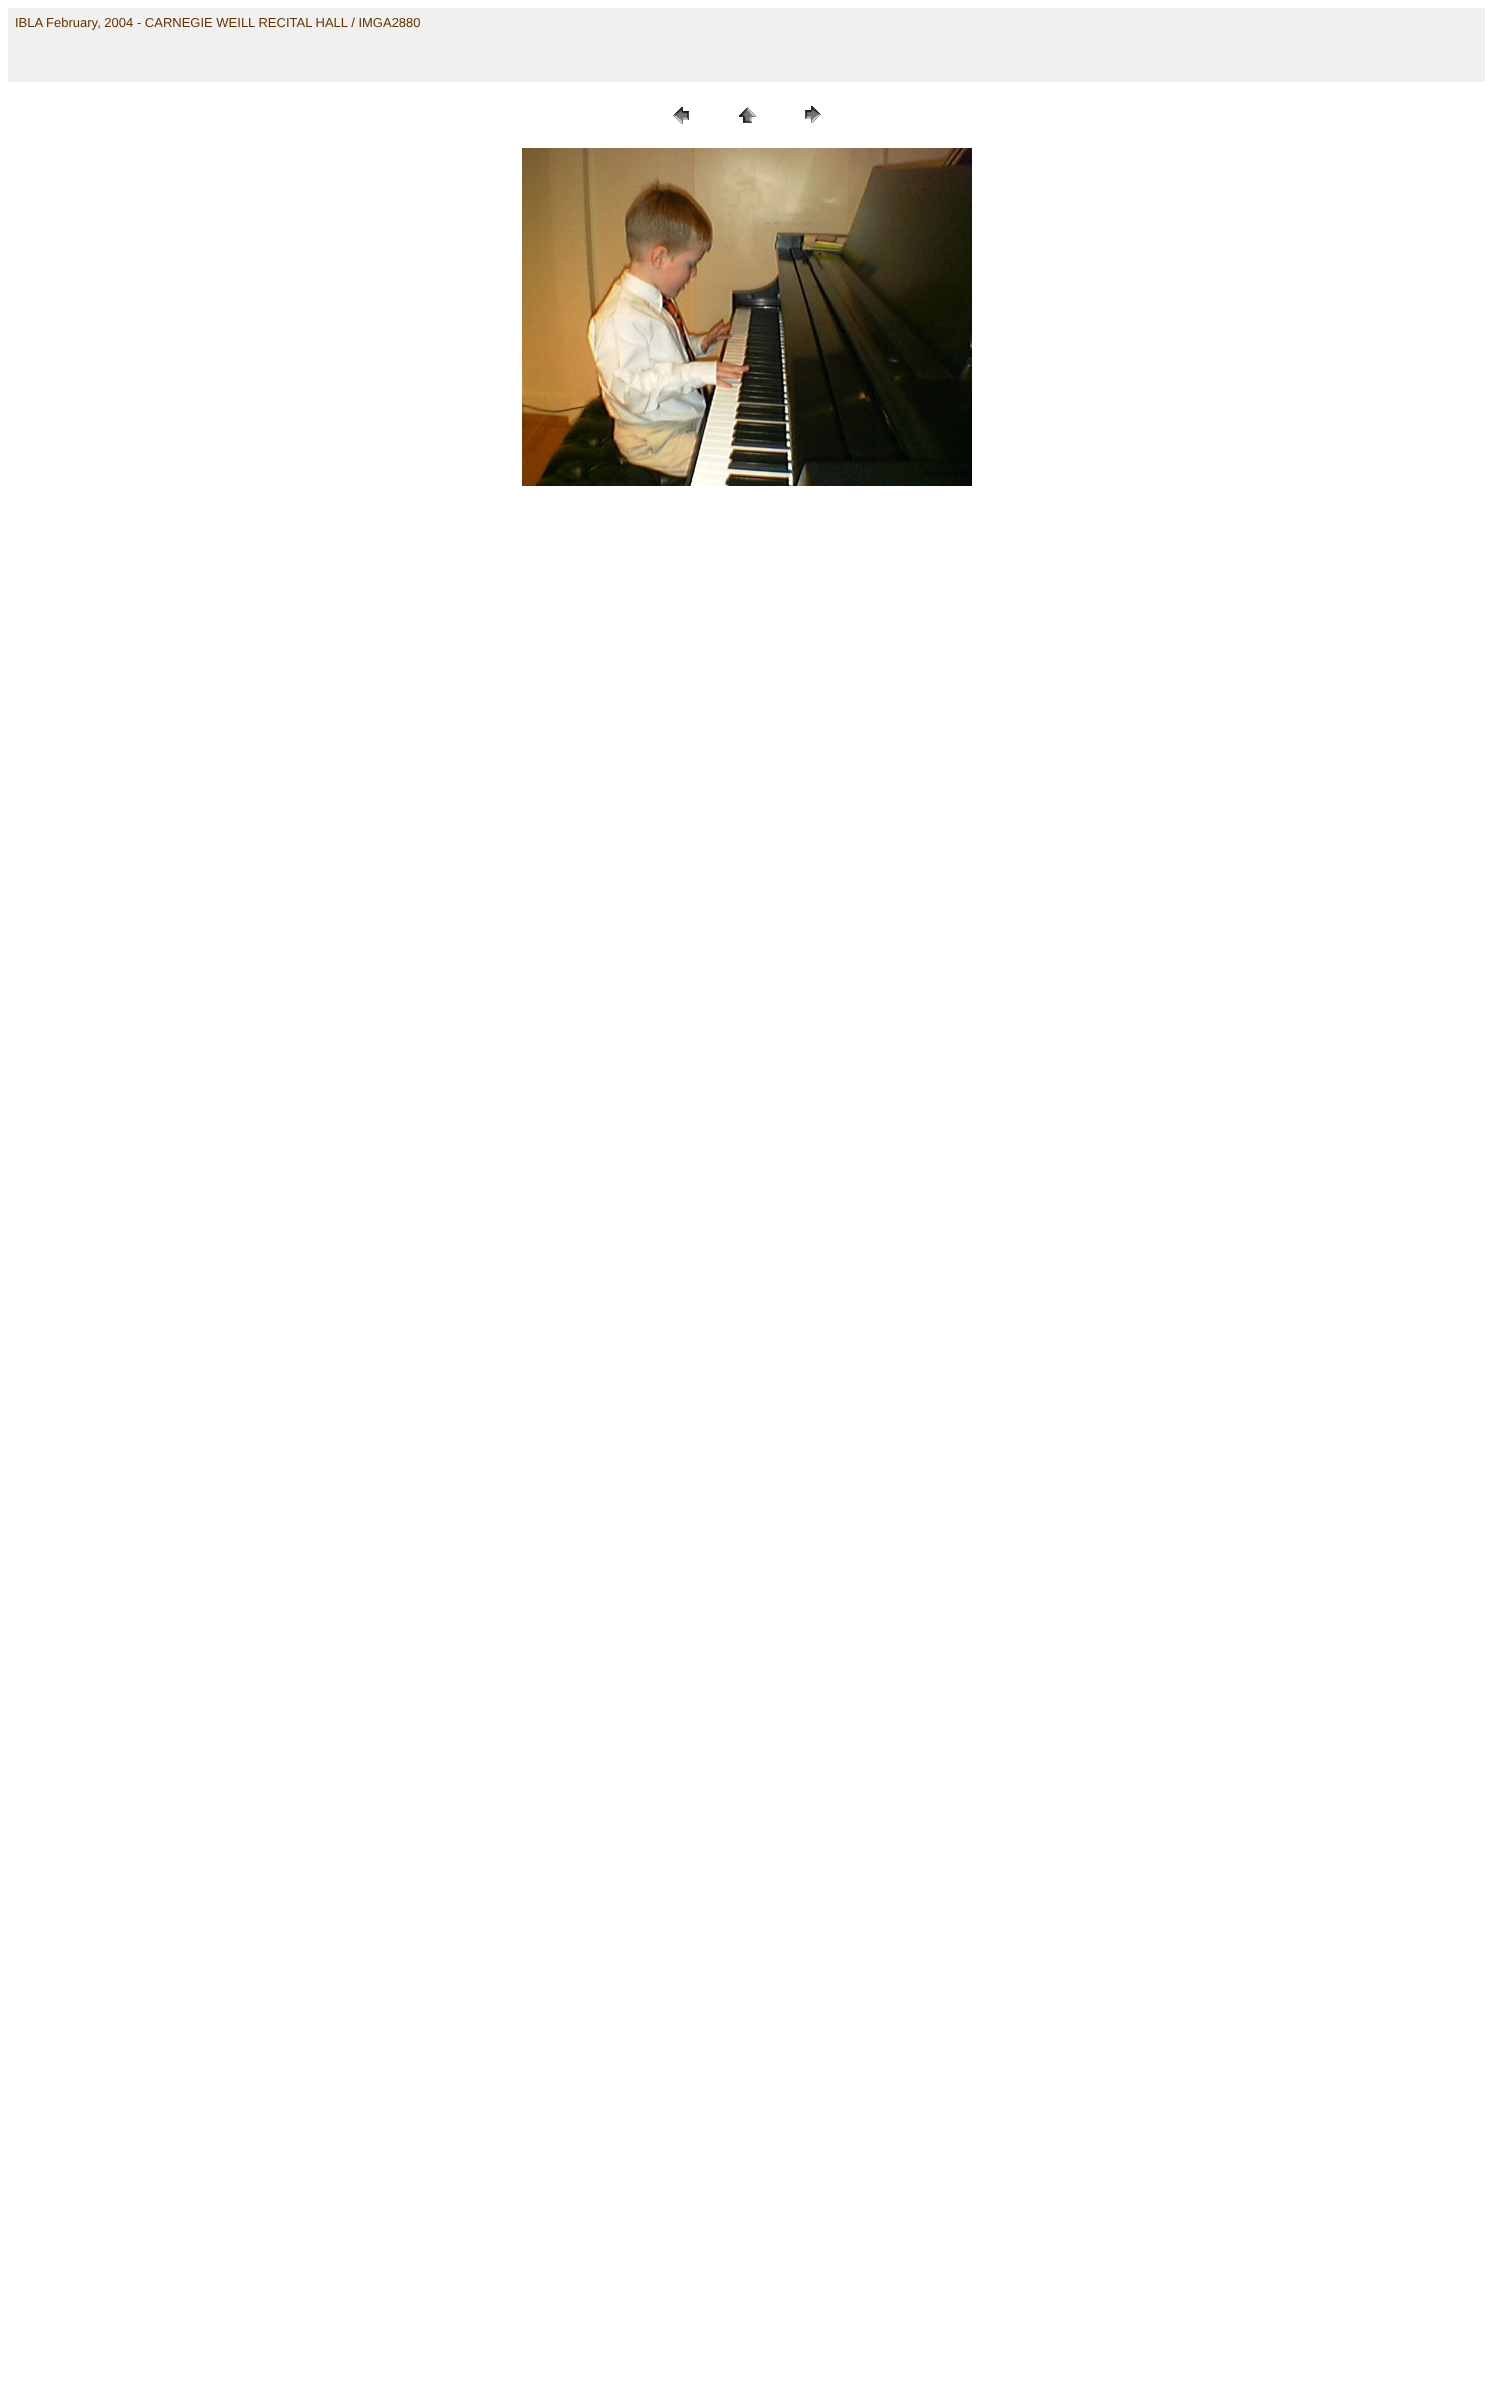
<svg xmlns="http://www.w3.org/2000/svg" xmlns:xlink="http://www.w3.org/1999/xlink" width="1493" height="2405" viewBox="0 0 1493 2405">
<style>
.cls-1{font:13px Liberation Sans;fill:#663300}
</style>
<rect width="100%" height="100%" fill="#ffffff"/>
<rect fill="#f0f0f0" x="8" y="8" width="1477" height="74"/>
<image xlink:href="image0.png" x="673" y="107" width="16" height="17"/>
<image xlink:href="image1.png" x="739" y="107" width="17" height="16"/>
<image xlink:href="image2.png" x="805" y="106" width="16" height="17"/>
<image xlink:href="image3.png" x="522" y="148" width="450" height="338"/>
<text class="cls-1" x="15" y="27">IBLA February, 2004 - CARNEGIE WEILL RECITAL HALL / IMGA2880</text>
</svg>
